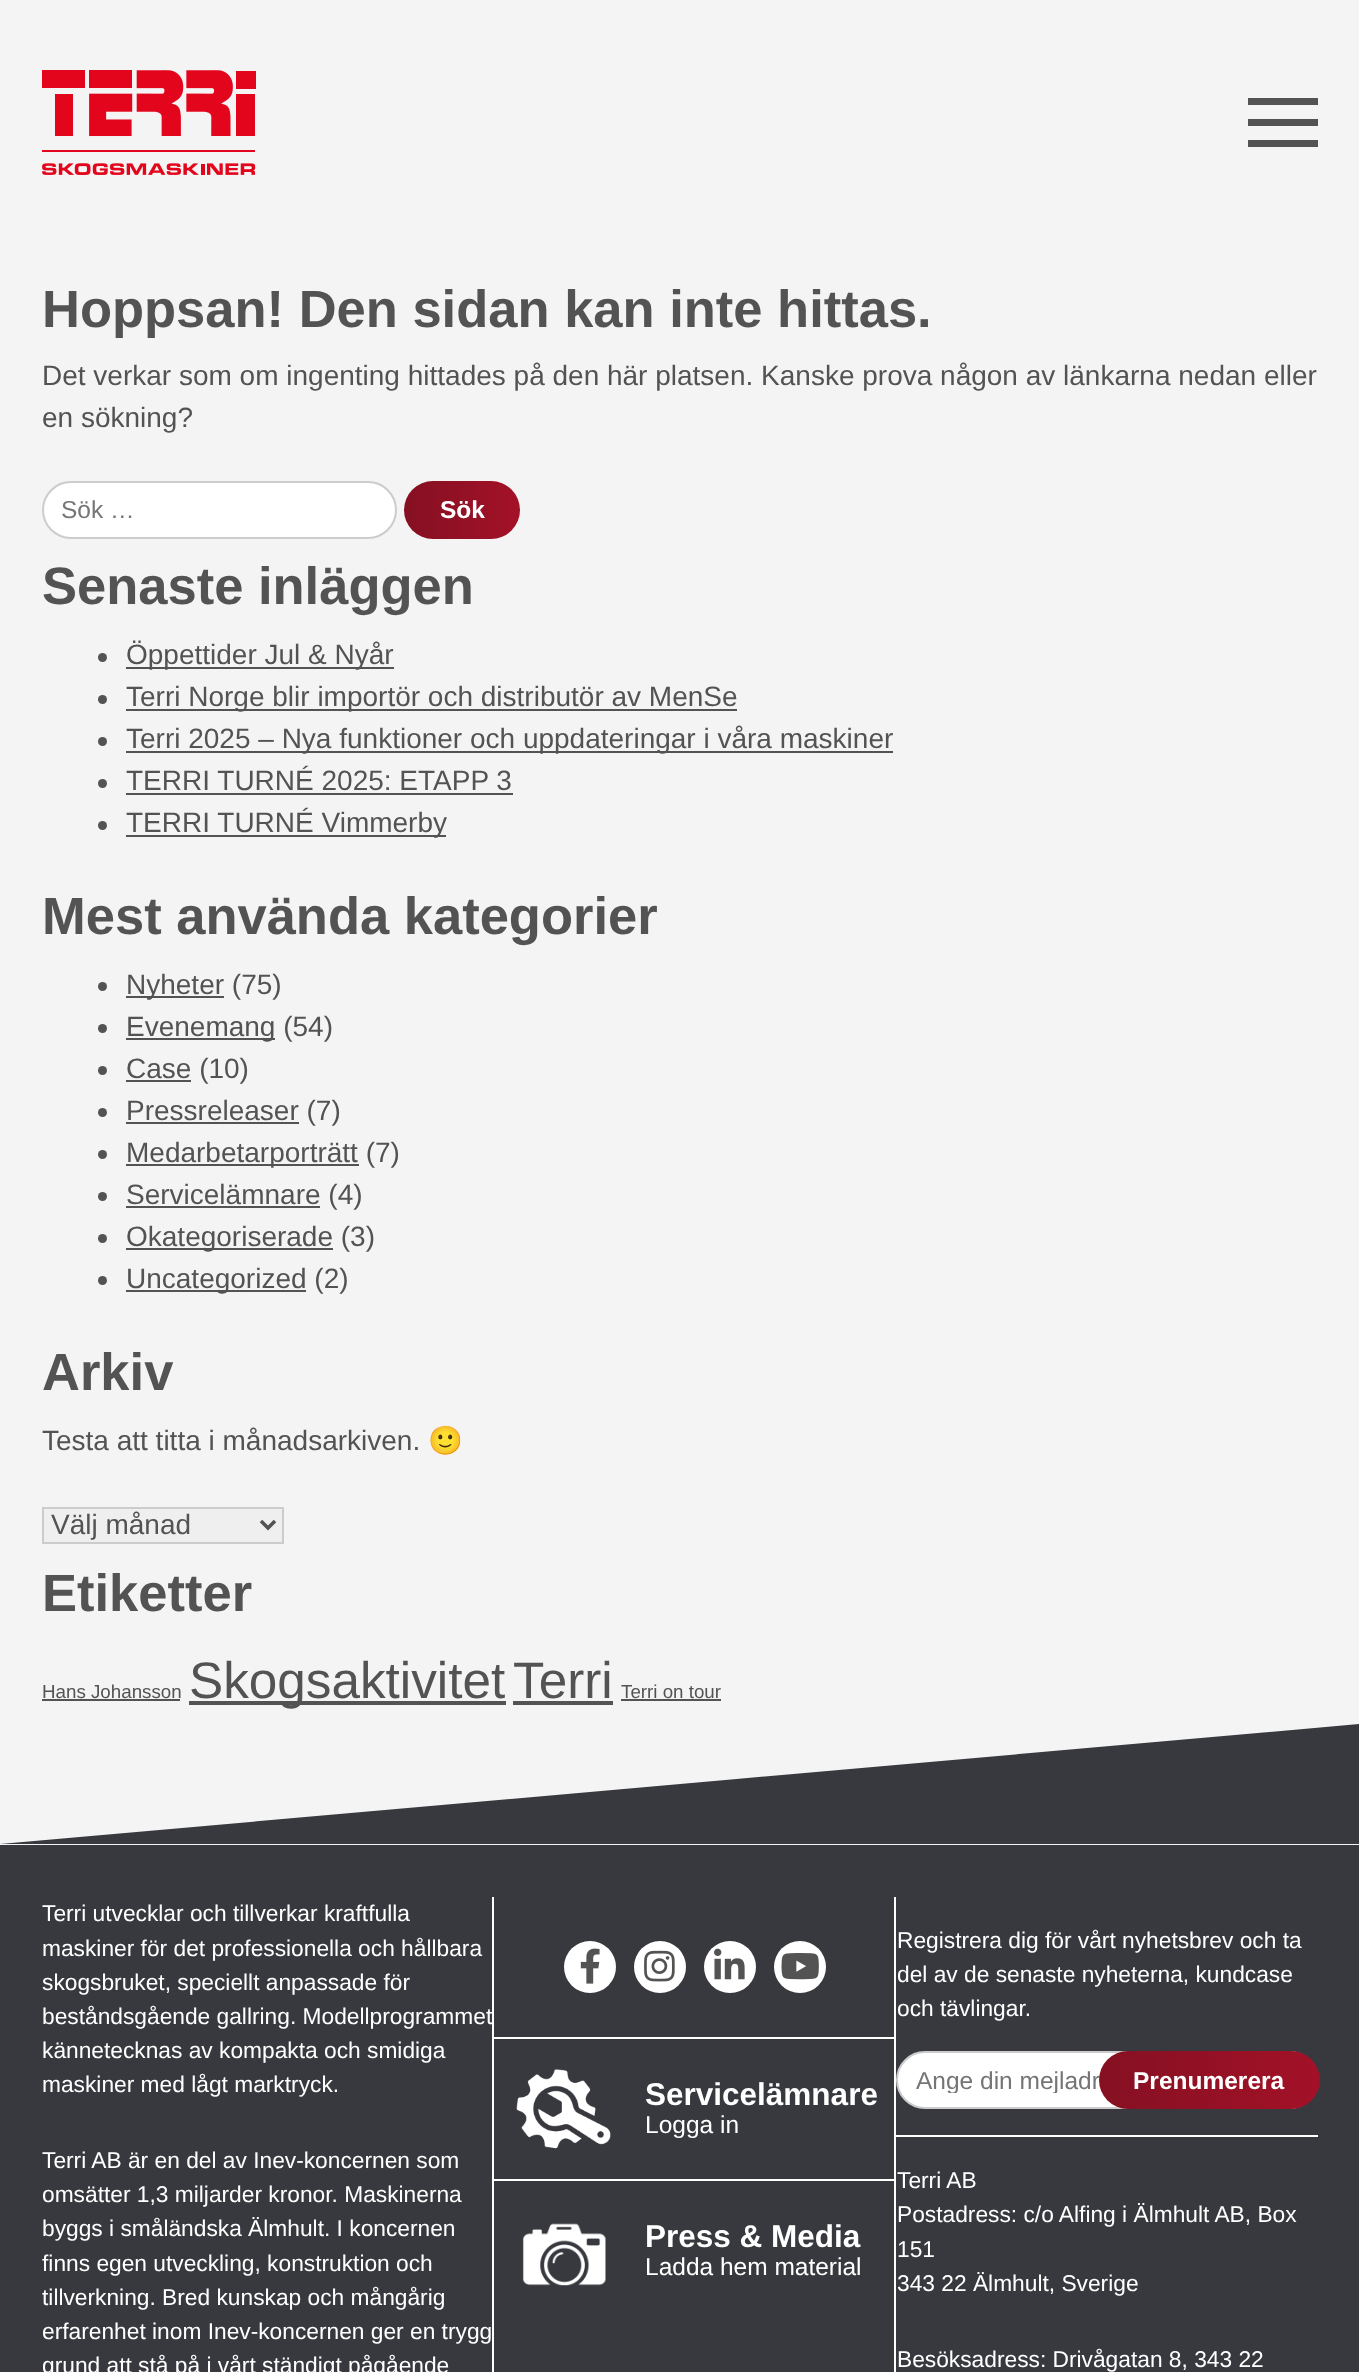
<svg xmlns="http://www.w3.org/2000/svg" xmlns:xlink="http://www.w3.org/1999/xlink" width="1359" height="2372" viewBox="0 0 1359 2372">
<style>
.cls-1{font:bold 52.5px Liberation Sans;fill:#535353}
.cls-2{font:28px Liberation Sans;fill:#535353}
.cls-3{font:24.5px Liberation Sans;fill:#757575}
.cls-4{font:bold 24.5px Liberation Sans;fill:#ffffff}
.cls-5{font:28px Noto Color Emoji;fill:#535353}
.cls-6{font:18.75px Liberation Sans;fill:#535353}
.cls-7{font:51.25px Liberation Sans;fill:#535353}
.cls-8{font:22.75px Liberation Sans;fill:#ffffff}
.cls-9{font:bold 31.5px Liberation Sans;fill:#ffffff}
.cls-10{font:24.5px Liberation Sans;fill:#ffffff}
</style>
<defs>
<linearGradient id="g1" gradientUnits="userSpaceOnUse" x1="520" y1="510" x2="404" y2="510"><stop offset="0" stop-color="#a31127"/><stop offset="1" stop-color="#851022"/></linearGradient>
<clipPath id="clip1"><rect x="915" y="2065" width="384" height="28"/></clipPath>
<linearGradient id="g2" gradientUnits="userSpaceOnUse" x1="1320" y1="2080" x2="1099" y2="2080"><stop offset="0" stop-color="#a31127"/><stop offset="1" stop-color="#851022"/></linearGradient>
</defs>
<rect width="100%" height="100%" fill="#f4f4f4"/>
<image xlink:href="image0.png" x="42" y="70" width="214" height="105"/>
<rect fill="#535353" x="1248" y="98" width="70" height="7"/>
<rect fill="#535353" x="1248" y="119" width="70" height="7"/>
<rect fill="#535353" x="1248" y="140" width="70" height="7"/>
<rect fill="#ffffff" stroke="#cccccc" stroke-width="2" x="43" y="482" width="353" height="56" rx="28"/>
<rect fill="url(#g1)" x="404" y="481" width="116" height="58" rx="29"/>
<circle fill="#535353" cx="102.5" cy="657.5" r="4.5"/>
<rect fill="#535353" x="126" y="667" width="268" height="2"/>
<circle fill="#535353" cx="102.5" cy="699.5" r="4.5"/>
<rect fill="#535353" x="126" y="709" width="611" height="2"/>
<circle fill="#535353" cx="102.5" cy="741.5" r="4.5"/>
<rect fill="#535353" x="126" y="751" width="767" height="2"/>
<circle fill="#535353" cx="102.5" cy="783.5" r="4.5"/>
<rect fill="#535353" x="126" y="793" width="387" height="2"/>
<circle fill="#535353" cx="102.5" cy="825.5" r="4.5"/>
<rect fill="#535353" x="126" y="835" width="320" height="2"/>
<circle fill="#535353" cx="102.5" cy="986.5" r="4.5"/>
<rect fill="#535353" x="126" y="996" width="98" height="2"/>
<circle fill="#535353" cx="102.5" cy="1028.5" r="4.5"/>
<rect fill="#535353" x="126" y="1038" width="149" height="2"/>
<circle fill="#535353" cx="102.5" cy="1070.5" r="4.5"/>
<rect fill="#535353" x="126" y="1080" width="65" height="2"/>
<circle fill="#535353" cx="102.5" cy="1112.5" r="4.5"/>
<rect fill="#535353" x="126" y="1122" width="173" height="2"/>
<circle fill="#535353" cx="102.5" cy="1154.5" r="4.5"/>
<rect fill="#535353" x="126" y="1164" width="233" height="2"/>
<circle fill="#535353" cx="102.5" cy="1196.5" r="4.5"/>
<rect fill="#535353" x="126" y="1206" width="194" height="2"/>
<circle fill="#535353" cx="102.5" cy="1238.5" r="4.5"/>
<rect fill="#535353" x="126" y="1248" width="207" height="2"/>
<circle fill="#535353" cx="102.5" cy="1280.5" r="4.5"/>
<rect fill="#535353" x="126" y="1290" width="180" height="2"/>
<rect fill="#efefef" stroke="#cccccc" stroke-width="2" x="43" y="1508" width="240" height="35"/>
<path fill="none" stroke="#535353" stroke-width="3.5" d="M261 1521L268 1528L275 1521"/>
<rect fill="#535353" x="42" y="1699" width="138" height="2"/>
<rect fill="#535353" x="189" y="1701" width="317" height="4"/>
<rect fill="#535353" x="513" y="1701" width="100" height="4"/>
<rect fill="#535353" x="621" y="1699" width="100" height="2"/>
<rect fill="#38393e" x="0" y="1845" width="1359" height="527"/>
<path fill="#38393e" d="M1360 1724V1844H0Z"/>
<rect fill="#ffffff" x="894" y="1897" width="2" height="475"/>
<rect fill="#ffffff" x="492" y="1897" width="2" height="475"/>
<rect fill="#ffffff" x="494" y="2037" width="400" height="2"/>
<circle fill="#ffffff" cx="590" cy="1967" r="26"/>
<image xlink:href="image1.png" x="580" y="1948" width="20" height="36"/>
<circle fill="#ffffff" cx="660" cy="1967" r="26"/>
<image xlink:href="image2.png" x="644" y="1950" width="31" height="32"/>
<circle fill="#ffffff" cx="730" cy="1967" r="26"/>
<image xlink:href="image3.png" x="714" y="1948" width="31" height="32"/>
<circle fill="#ffffff" cx="800" cy="1967" r="26"/>
<image xlink:href="image4.png" x="781" y="1953" width="38" height="27"/>
<rect fill="#ffffff" x="494" y="2179" width="400" height="2"/>
<image xlink:href="image5.png" x="516" y="2069" width="95" height="80"/>
<image xlink:href="image6.png" x="522" y="2223" width="84" height="63"/>
<rect fill="#ffffff" x="896" y="2135" width="422" height="2"/>
<rect fill="#ffffff" stroke="#cccccc" stroke-width="2" x="897" y="2052" width="420" height="56" rx="28"/>
<text class="cls-1" x="42" y="327">Hoppsan! Den sidan kan inte hittas.</text>
<text class="cls-2"><tspan x="42" y="385">Det verkar som om ingenting hittades på den här platsen. Kanske prova någon av länkarna nedan eller</tspan><tspan x="42" y="427">en sökning?</tspan></text>
<text class="cls-3" x="61" y="518">Sök …</text>
<text class="cls-4" x="440" y="518">Sök</text>
<text class="cls-1" x="42" y="604">Senaste inläggen</text>
<text class="cls-2"><tspan x="126" y="664">Öppettider Jul &amp; Nyår</tspan><tspan x="126" y="706">Terri Norge blir importör och distributör av MenSe</tspan><tspan x="126" y="748">Terri 2025 – Nya funktioner och uppdateringar i våra maskiner</tspan><tspan x="126" y="790">TERRI TURNÉ 2025: ETAPP 3</tspan><tspan x="126" y="832">TERRI TURNÉ Vimmerby</tspan></text>
<text class="cls-1" x="42" y="934">Mest använda kategorier</text>
<text class="cls-2"><tspan x="126" y="994">Nyheter (75)</tspan><tspan x="126" y="1036">Evenemang (54)</tspan><tspan x="126" y="1078">Case (10)</tspan><tspan x="126" y="1120">Pressreleaser (7)</tspan><tspan x="126" y="1162">Medarbetarporträtt (7)</tspan><tspan x="126" y="1204">Servicelämnare (4)</tspan><tspan x="126" y="1246">Okategoriserade (3)</tspan><tspan x="126" y="1288">Uncategorized (2)</tspan></text>
<text class="cls-1" x="42" y="1390">Arkiv</text>
<text class="cls-2" x="42" y="1450">Testa att titta i månadsarkiven.</text>
<text class="cls-5" x="428" y="1450">🙂</text>
<text class="cls-2" x="51" y="1534">Välj månad</text>
<text class="cls-1" x="42" y="1611">Etiketter</text>
<text class="cls-6" x="42" y="1698">Hans Johansson</text>
<text class="cls-7" x="189" y="1698">Skogsaktivitet</text>
<text class="cls-7" x="513" y="1698">Terri</text>
<text class="cls-6" x="621" y="1698">Terri on tour</text>
<text class="cls-8"><tspan x="42" y="1921">Terri utvecklar och tillverkar kraftfulla</tspan><tspan x="42" y="1956">maskiner för det professionella och hållbara</tspan><tspan x="42" y="1990">skogsbruket, speciellt anpassade för</tspan><tspan x="42" y="2024">beståndsgående gallring. Modellprogrammet</tspan><tspan x="42" y="2058">kännetecknas av kompakta och smidiga</tspan><tspan x="42" y="2092">maskiner med lågt marktryck.</tspan></text>
<text class="cls-8"><tspan x="42" y="2168">Terri AB är en del av Inev-koncernen som</tspan><tspan x="42" y="2202">omsätter 1,3 miljarder kronor. Maskinerna</tspan><tspan x="42" y="2236">byggs i småländska Älmhult. I koncernen</tspan><tspan x="42" y="2271">finns egen utveckling, konstruktion och</tspan><tspan x="42" y="2305">tillverkning. Bred kunskap och mångårig</tspan><tspan x="42" y="2339">erfarenhet inom Inev-koncernen ger en trygg</tspan><tspan x="42" y="2373">grund att stå på i vårt ständigt pågående</tspan></text>
<text class="cls-9" x="645" y="2105">Servicelämnare</text>
<text class="cls-10" x="645" y="2133">Logga in</text>
<text class="cls-9" x="645" y="2247">Press &amp; Media</text>
<text class="cls-10" x="645" y="2275">Ladda hem material</text>
<text class="cls-8"><tspan x="897" y="1948">Registrera dig för vårt nyhetsbrev och ta</tspan><tspan x="897" y="1982">del av de senaste nyheterna, kundcase</tspan><tspan x="897" y="2016">och tävlingar.</tspan></text>
<g clip-path="url(#clip1)">
<text class="cls-3" x="916" y="2089">Ange din mejladr</text>
</g>
<rect fill="url(#g2)" x="1099" y="2051" width="221" height="58" rx="29"/>
<text class="cls-4" x="1133" y="2089">Prenumerera</text>
<text class="cls-8"><tspan x="897" y="2188">Terri AB</tspan><tspan x="897" y="2222">Postadress: c/o Alfing i Älmhult AB, Box</tspan><tspan x="897" y="2257">151</tspan><tspan x="897" y="2291">343 22 Älmhult, Sverige</tspan></text>
<text class="cls-8" x="897" y="2367">Besöksadress: Drivågatan 8, 343 22</text>
</svg>
